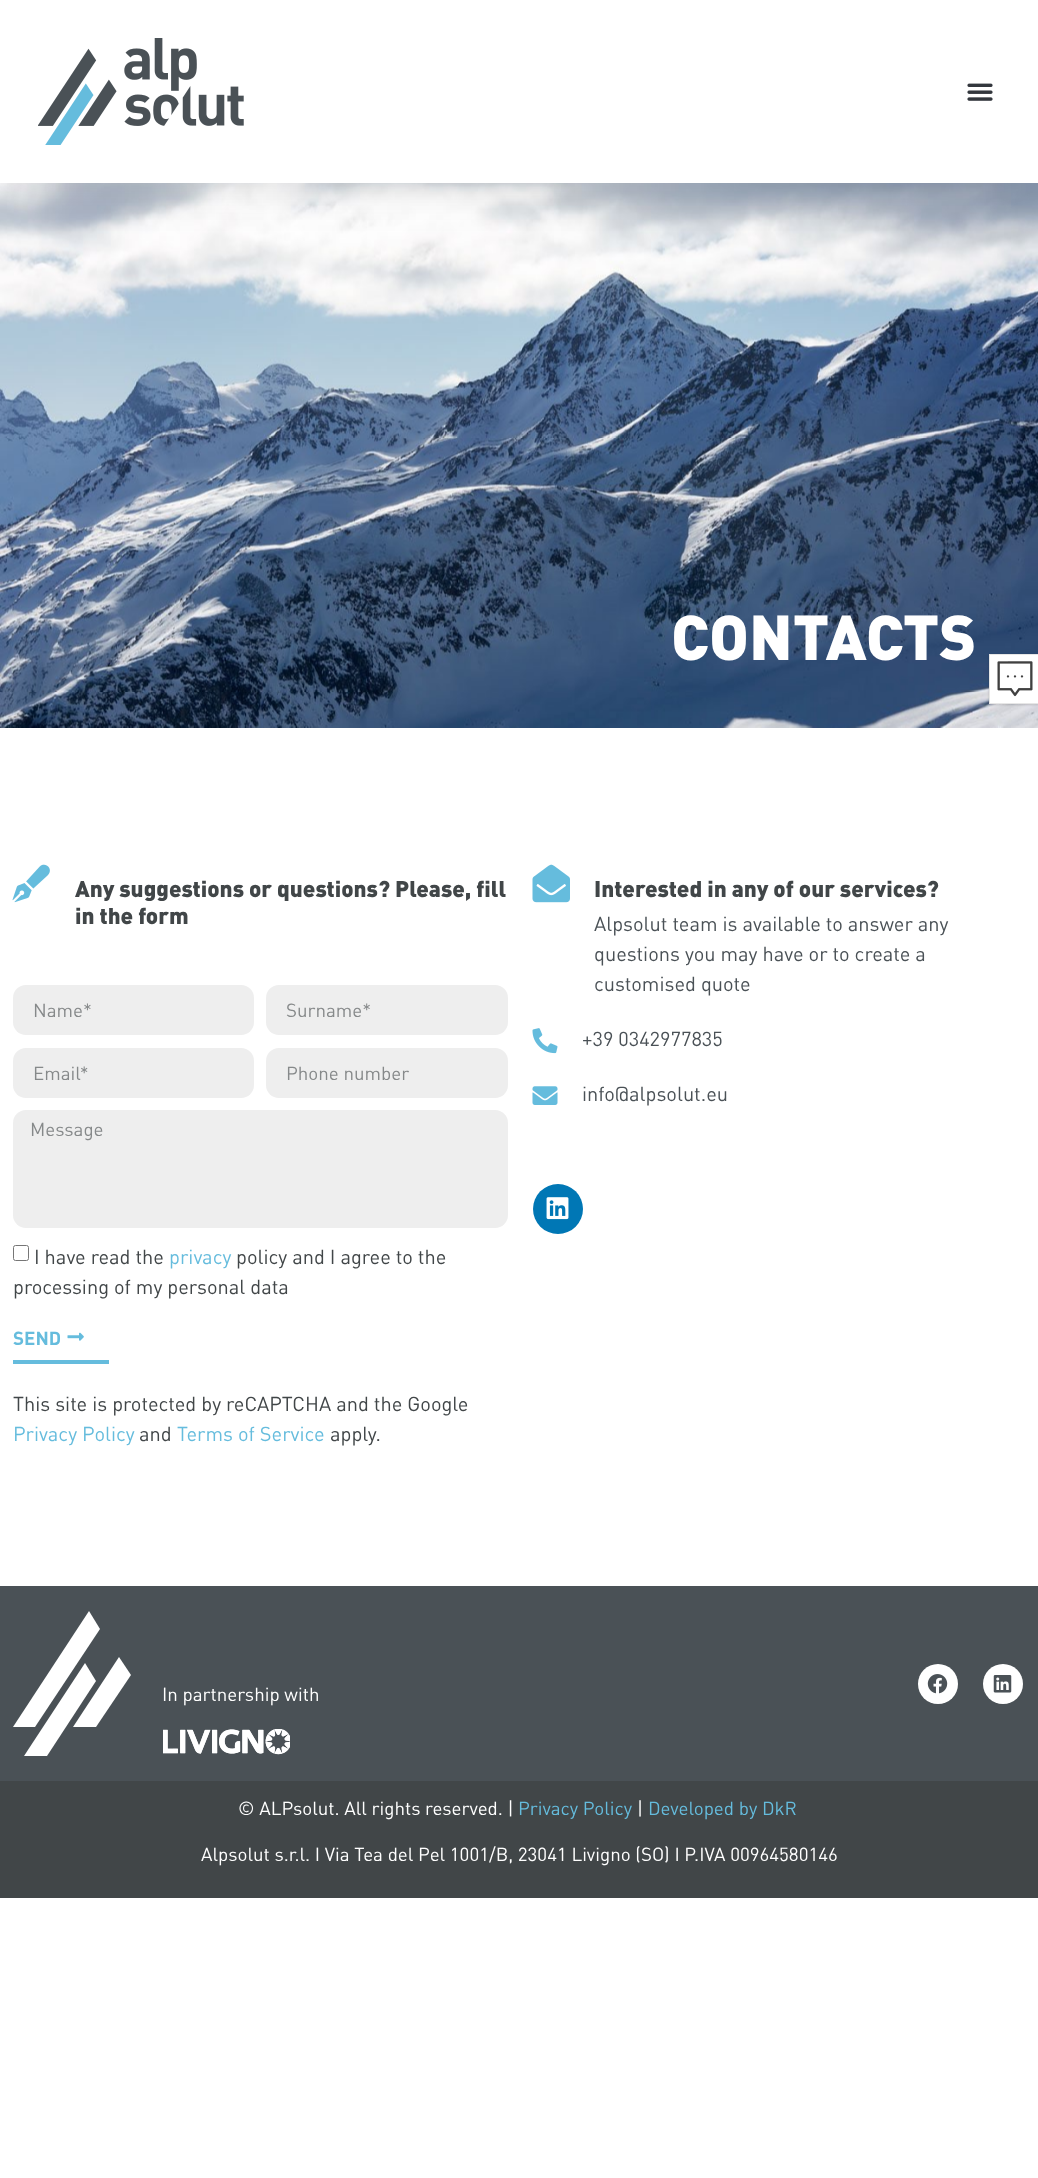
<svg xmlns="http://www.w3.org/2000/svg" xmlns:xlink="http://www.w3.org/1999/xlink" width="1038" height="2178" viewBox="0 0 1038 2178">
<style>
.cls-1{font:900 62.5px DIN;fill:#ffffff}
.cls-2{font:900 22.5px DIN;fill:#414648}
.cls-3{font:18.75px DIN;fill:#86898a}
.cls-4{font:20px DIN;fill:#414648}
.cls-5{font:20px DIN;fill:#65bcdd}
.cls-6{font:bold 18.75px DIN;fill:#65bcdd}
.cls-7{font:20px DIN;fill:#4a5156}
.cls-8{font:18.75px DIN;fill:#ffffff}
.cls-9{font:18.75px DIN;fill:#65bcdd}
</style>
<rect width="100%" height="100%" fill="#ffffff"/>
<image xlink:href="image2.png" x="0" y="183" width="1038" height="545"/>
<rect fill="#000000" fill-opacity="0.1" filter="blur(25px)" x="0" y="0" width="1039" height="183"/>
<rect fill="#ffffff" x="0" y="0" width="1038" height="183"/>
<image xlink:href="image0.png" x="38" y="38" width="206" height="107"/>
<image xlink:href="image1.png" x="967" y="83" width="26" height="18"/>
<image xlink:href="image3.png" x="12" y="864" width="38" height="39"/>
<rect fill="#eeeeee" x="13" y="985" width="241" height="50" rx="13"/>
<rect fill="#eeeeee" x="266" y="985" width="242" height="50" rx="13"/>
<rect fill="#eeeeee" x="13" y="1048" width="241" height="50" rx="13"/>
<rect fill="#eeeeee" x="266" y="1048" width="242" height="50" rx="13"/>
<rect fill="#eeeeee" x="13" y="1110" width="495" height="118" rx="13"/>
<rect fill="none" stroke="#767676" x="13.5" y="1245.5" width="15" height="15" rx="2"/>
<rect fill="#65bcdd" x="13" y="1360" width="96" height="4"/>
<image xlink:href="image4.png" x="67" y="1332" width="17" height="9"/>
<image xlink:href="image5.png" x="532" y="864" width="38" height="39"/>
<image xlink:href="image6.png" x="532" y="1028" width="26" height="26"/>
<image xlink:href="image7.png" x="532" y="1086" width="26" height="19"/>
<circle fill="#0077b5" cx="558" cy="1209" r="25"/>
<image xlink:href="image8.png" x="546" y="1197" width="23" height="23"/>
<rect fill="#000000" fill-opacity="0.15" filter="blur(1px)" x="989" y="655" width="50" height="50"/>
<rect fill="#ffffff" stroke="#e6e6e6" x="989.5" y="654.5" width="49" height="49"/>
<image xlink:href="image9.png" x="997" y="661" width="36" height="36"/>
<rect fill="#4a5156" x="0" y="1586" width="1038" height="195"/>
<path fill="#ffffff" d="M89 1611L13 1727H35L100 1629Z"/>
<path fill="#ffffff" d="M119 1657L73 1727H96L131 1675Z"/>
<path fill="#ffffff" d="M85 1663L24 1756H47L96 1681Z"/>
<image xlink:href="image10.png" x="163" y="1729" width="127" height="26"/>
<circle fill="#ffffff" cx="938" cy="1684" r="20"/>
<image xlink:href="image11.png" x="927" y="1674" width="21" height="20"/>
<circle fill="#ffffff" cx="1003" cy="1684" r="20"/>
<image xlink:href="image12.png" x="993" y="1675" width="19" height="18"/>
<rect fill="#414648" x="0" y="1781" width="1038" height="117"/>
<text class="cls-1" x="671" y="660">CONTACTS</text>
<text class="cls-2"><tspan x="75" y="897">Any suggestions or questions? Please, fill</tspan><tspan x="75" y="924">in the form</tspan></text>
<text class="cls-3" x="33" y="1017">Name*</text>
<text class="cls-3" x="286" y="1017">Surname*</text>
<text class="cls-3" x="33" y="1080">Email*</text>
<text class="cls-3" x="286" y="1080">Phone number</text>
<text class="cls-3" x="30" y="1136">Message</text>
<text class="cls-4" x="34" y="1264">I have read the</text>
<text class="cls-5" x="169" y="1264">privacy</text>
<text class="cls-4" x="236" y="1264">policy and I agree to the</text>
<text class="cls-4" x="13" y="1294">processing of my personal data</text>
<text class="cls-6" x="13" y="1345">SEND</text>
<text class="cls-4" x="13" y="1411">This site is protected by reCAPTCHA and the Google</text>
<text class="cls-5" x="13" y="1441">Privacy Policy</text>
<text class="cls-4" x="139" y="1441">and</text>
<text class="cls-5" x="177" y="1441">Terms of Service</text>
<text class="cls-4" x="330" y="1441">apply.</text>
<text class="cls-2" x="594" y="897">Interested in any of our services?</text>
<text class="cls-7"><tspan x="594" y="931">Alpsolut team is available to answer any</tspan><tspan x="594" y="961">questions you may have or to create a</tspan><tspan x="594" y="991">customised quote</tspan></text>
<text class="cls-7" x="582" y="1046">+39 0342977835</text>
<text class="cls-7" x="582" y="1101">info@alpsolut.eu</text>
<text class="cls-8" x="162" y="1701">In partnership with</text>
<text class="cls-8" x="238" y="1815">© ALPsolut. All rights reserved. |</text>
<text class="cls-9" x="518" y="1815">Privacy Policy</text>
<text class="cls-8" x="637" y="1815">|</text>
<text class="cls-9" x="648" y="1815">Developed by DkR</text>
<text class="cls-8" x="201" y="1861">Alpsolut s.r.l. I Via Tea del Pel 1001/B, 23041 Livigno (SO) I P.IVA 00964580146</text>
</svg>
